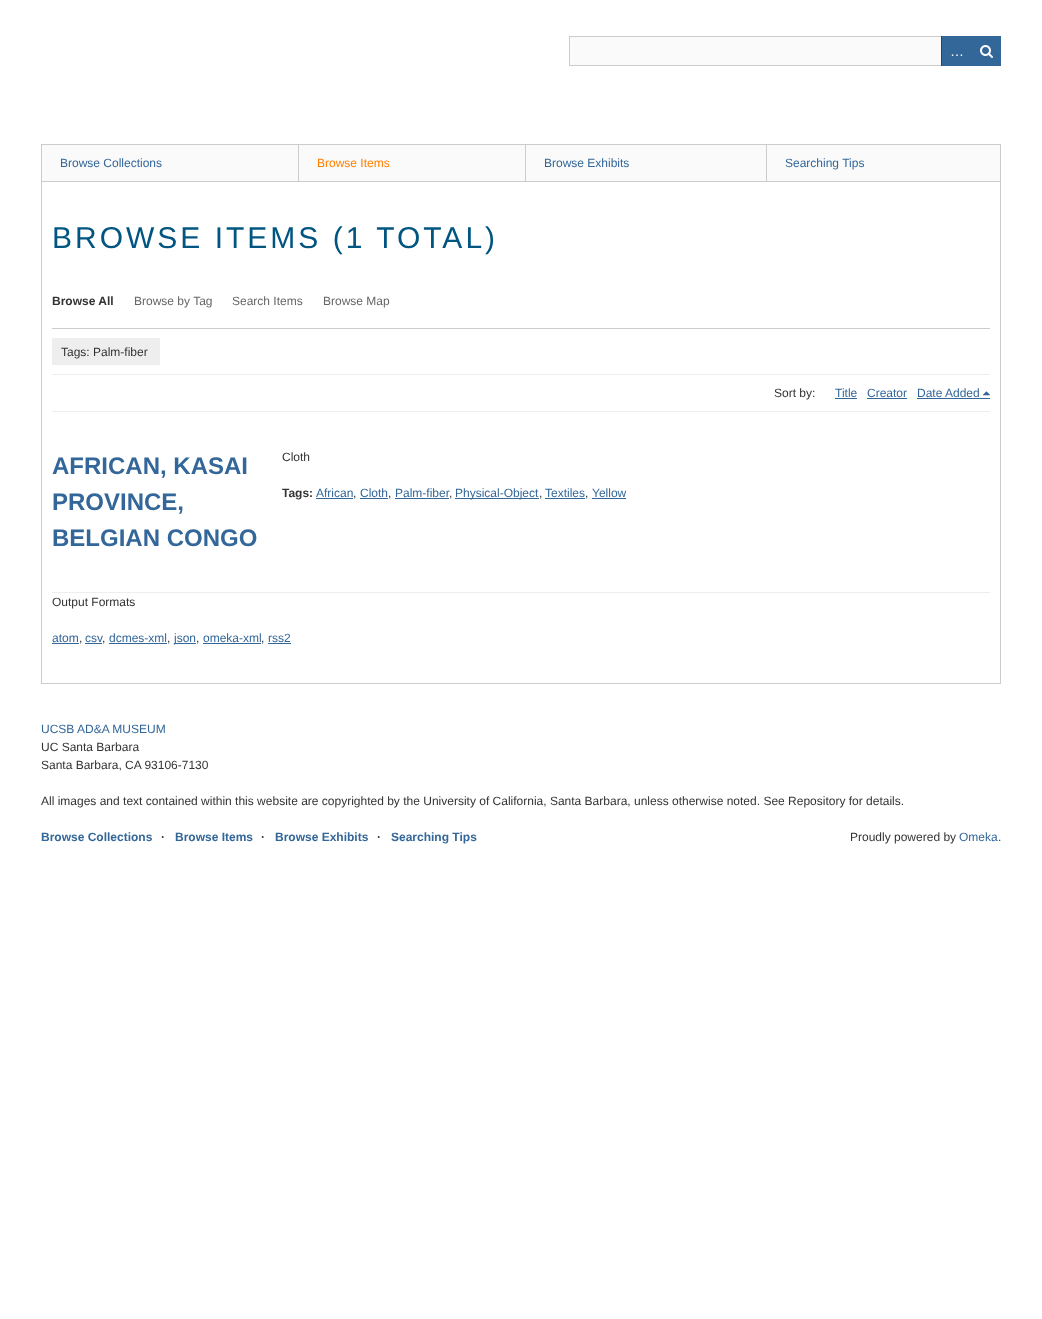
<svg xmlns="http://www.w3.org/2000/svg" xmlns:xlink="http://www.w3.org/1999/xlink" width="1042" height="1319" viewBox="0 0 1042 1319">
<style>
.cls-1{font:14px Liberation Sans;fill:#ffffff}
.cls-2{font:12px Liberation Sans;fill:#336699}
.cls-3{font:12px Liberation Sans;fill:#ff8000}
.cls-4{font:30px Liberation Sans;letter-spacing:3px;fill:#015581}
.cls-5{font:bold 12px Liberation Sans;fill:#333333}
.cls-6{font:12px Liberation Sans;fill:#666666}
.cls-7{font:12px Liberation Sans;fill:#333333}
.cls-8{font:bold 24px Liberation Sans;fill:#336699}
.cls-9{font:bold 12px Liberation Sans;fill:#336699}
</style>
<rect width="100%" height="100%" fill="#ffffff"/>
<rect fill="#fafafa" x="570" y="37" width="371" height="28"/>
<rect fill="none" stroke="#cccccc" x="569.5" y="36.5" width="431" height="29"/>
<rect fill="#005177" x="941" y="36" width="1" height="30"/>
<rect fill="#336699" x="942" y="36" width="59" height="30"/>
<image xlink:href="image0.png" x="980" y="45" width="13" height="13"/>
<rect fill="#cccccc" x="1000" y="144" width="1" height="37"/>
<rect fill="#fafafa" x="42" y="145" width="256" height="36"/>
<rect fill="#cccccc" x="41" y="144" width="257" height="1"/>
<rect fill="#cccccc" x="41" y="144" width="1" height="37"/>
<rect fill="#fafafa" x="299" y="145" width="226" height="36"/>
<rect fill="#cccccc" x="298" y="144" width="702" height="1"/>
<rect fill="#cccccc" x="298" y="144" width="1" height="37"/>
<rect fill="#fafafa" x="526" y="145" width="240" height="36"/>
<rect fill="#cccccc" x="525" y="144" width="1" height="37"/>
<rect fill="#fafafa" x="767" y="145" width="233" height="36"/>
<rect fill="#cccccc" x="766" y="144" width="1" height="37"/>
<rect fill="none" stroke="#cccccc" x="41.5" y="181.5" width="959" height="502"/>
<rect fill="#cccccc" x="52" y="328" width="938" height="1"/>
<rect fill="#eeeeee" x="52" y="374" width="938" height="1"/>
<rect fill="#eeeeee" x="52" y="338" width="108" height="27"/>
<rect fill="#336699" x="835" y="398" width="22" height="1"/>
<rect fill="#336699" x="867" y="398" width="40" height="1"/>
<rect fill="#336699" x="917" y="398" width="73" height="1"/>
<image xlink:href="image1.png" x="983" y="391" width="7" height="5"/>
<rect fill="#eeeeee" x="52" y="411" width="938" height="1"/>
<rect fill="#eeeeee" x="52" y="592" width="938" height="1"/>
<rect fill="#336699" x="316" y="498" width="37" height="1"/>
<rect fill="#336699" x="360" y="498" width="28" height="1"/>
<rect fill="#336699" x="395" y="498" width="54" height="1"/>
<rect fill="#336699" x="455" y="498" width="84" height="1"/>
<rect fill="#336699" x="545" y="498" width="40" height="1"/>
<rect fill="#336699" x="592" y="498" width="34" height="1"/>
<rect fill="#336699" x="52" y="643" width="27" height="1"/>
<rect fill="#336699" x="85" y="643" width="17" height="1"/>
<rect fill="#336699" x="109" y="643" width="58" height="1"/>
<rect fill="#336699" x="174" y="643" width="22" height="1"/>
<rect fill="#336699" x="203" y="643" width="58" height="1"/>
<rect fill="#336699" x="268" y="643" width="23" height="1"/>
<text class="cls-1" x="950" y="56">…</text>
<text class="cls-2" x="60" y="167">Browse Collections</text>
<text class="cls-3" x="317" y="167">Browse Items</text>
<text class="cls-2" x="544" y="167">Browse Exhibits</text>
<text class="cls-2" x="785" y="167">Searching Tips</text>
<text class="cls-4" x="52" y="248">BROWSE ITEMS (1 TOTAL)</text>
<text class="cls-5" x="52" y="305">Browse All</text>
<text class="cls-6" x="134" y="305">Browse by Tag</text>
<text class="cls-6" x="232" y="305">Search Items</text>
<text class="cls-6" x="323" y="305">Browse Map</text>
<text class="cls-7" x="61" y="356">Tags: Palm-fiber</text>
<text class="cls-7" x="774" y="397">Sort by:</text>
<text class="cls-2" x="835" y="397">Title</text>
<text class="cls-2" x="867" y="397">Creator</text>
<text class="cls-2" x="917" y="397">Date Added</text>
<text class="cls-8"><tspan x="52" y="474">AFRICAN, KASAI</tspan><tspan x="52" y="510">PROVINCE,</tspan><tspan x="52" y="546">BELGIAN CONGO</tspan></text>
<text class="cls-7" x="282" y="461">Cloth</text>
<text class="cls-5" x="282" y="497">Tags:</text>
<text class="cls-2" x="316" y="497">African</text>
<text class="cls-7" x="353" y="497">,</text>
<text class="cls-2" x="360" y="497">Cloth</text>
<text class="cls-7" x="388" y="497">,</text>
<text class="cls-2" x="395" y="497">Palm-fiber</text>
<text class="cls-7" x="449" y="497">,</text>
<text class="cls-2" x="455" y="497">Physical-Object</text>
<text class="cls-7" x="539" y="497">,</text>
<text class="cls-2" x="545" y="497">Textiles</text>
<text class="cls-7" x="585" y="497">,</text>
<text class="cls-2" x="592" y="497">Yellow</text>
<text class="cls-7" x="52" y="606">Output Formats</text>
<text class="cls-2" x="52" y="642">atom</text>
<text class="cls-7" x="79" y="642">,</text>
<text class="cls-2" x="85" y="642">csv</text>
<text class="cls-2" x="109" y="642">dcmes-xml</text>
<text class="cls-2" x="174" y="642">json</text>
<text class="cls-2" x="203" y="642">omeka-xml</text>
<text class="cls-2" x="268" y="642">rss2</text>
<text class="cls-7" x="102" y="642">,</text>
<text class="cls-7" x="167" y="642">,</text>
<text class="cls-7" x="196" y="642">,</text>
<text class="cls-7" x="261" y="642">,</text>
<text class="cls-2" x="41" y="733">UCSB AD&amp;A MUSEUM</text>
<text class="cls-7"><tspan x="41" y="751">UC Santa Barbara</tspan><tspan x="41" y="769">Santa Barbara, CA 93106-7130</tspan></text>
<text class="cls-7" x="41" y="805">All images and text contained within this website are copyrighted by the University of California, Santa Barbara, unless otherwise noted. See Repository for details.</text>
<text class="cls-9" x="41" y="841">Browse Collections</text>
<text class="cls-5" x="161" y="841">·</text>
<text class="cls-9" x="175" y="841">Browse Items</text>
<text class="cls-5" x="261" y="841">·</text>
<text class="cls-9" x="275" y="841">Browse Exhibits</text>
<text class="cls-5" x="377" y="841">·</text>
<text class="cls-9" x="391" y="841">Searching Tips</text>
<text class="cls-7" x="850" y="841">Proudly powered by</text>
<text class="cls-2" x="959" y="841">Omeka</text>
<text class="cls-7" x="998" y="841">.</text>
</svg>
